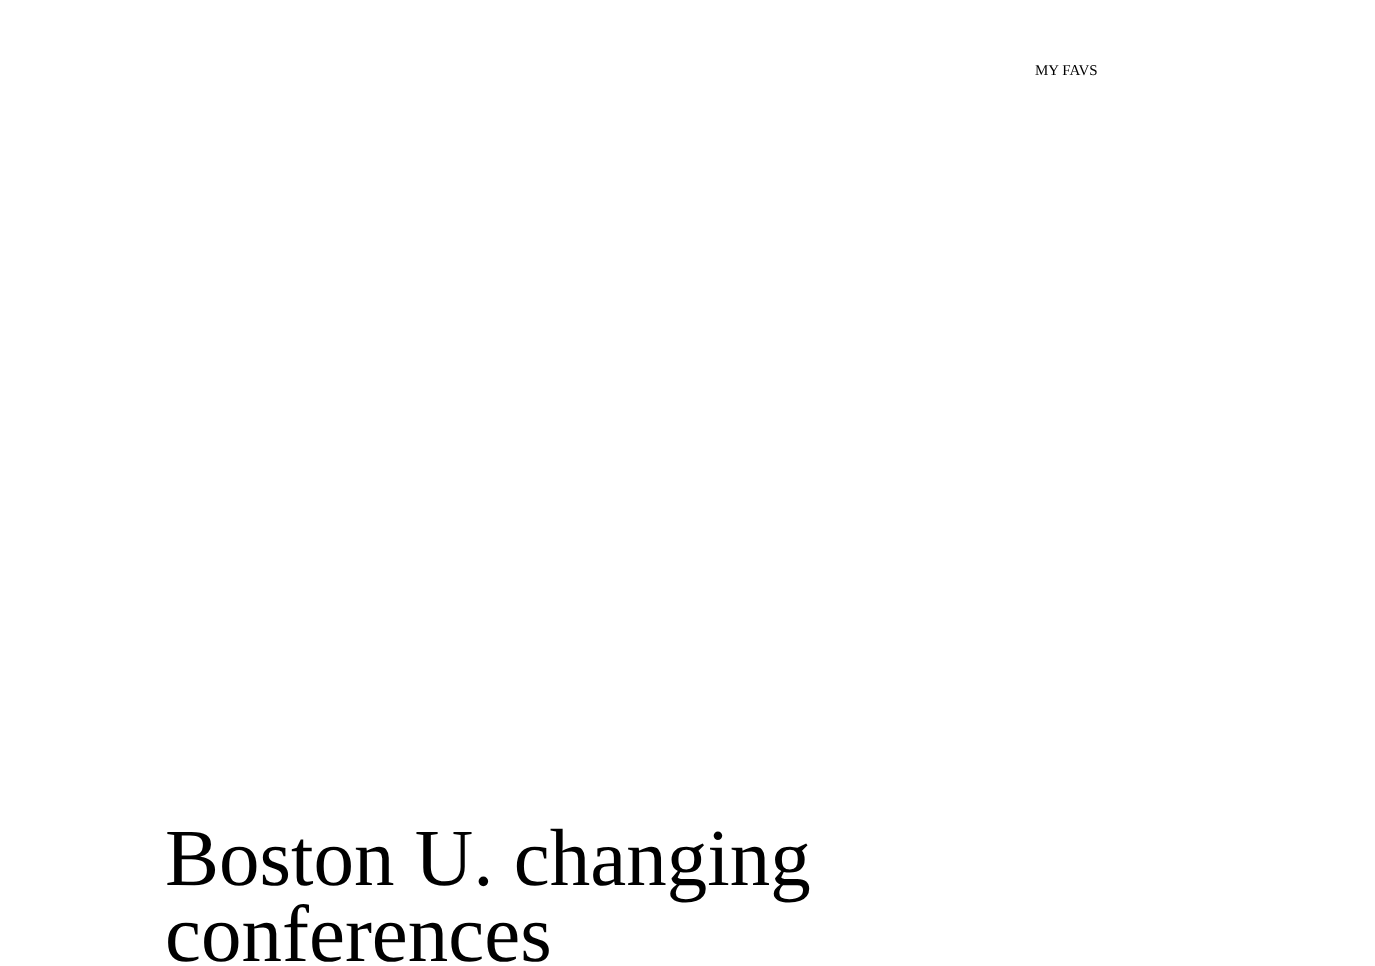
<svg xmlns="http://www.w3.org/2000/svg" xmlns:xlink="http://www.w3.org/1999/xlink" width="1375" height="966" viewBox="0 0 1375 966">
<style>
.cls-1{font:15px Liberation Serif;fill:#000000}
.cls-2{font:81px Liberation Serif;fill:#000000}
</style>
<rect width="100%" height="100%" fill="#ffffff"/>
<text class="cls-1" x="1035" y="75">MY FAVS</text>
<text class="cls-2"><tspan x="165" y="885">Boston U. changing</tspan><tspan x="165" y="961">conferences</tspan></text>
</svg>
